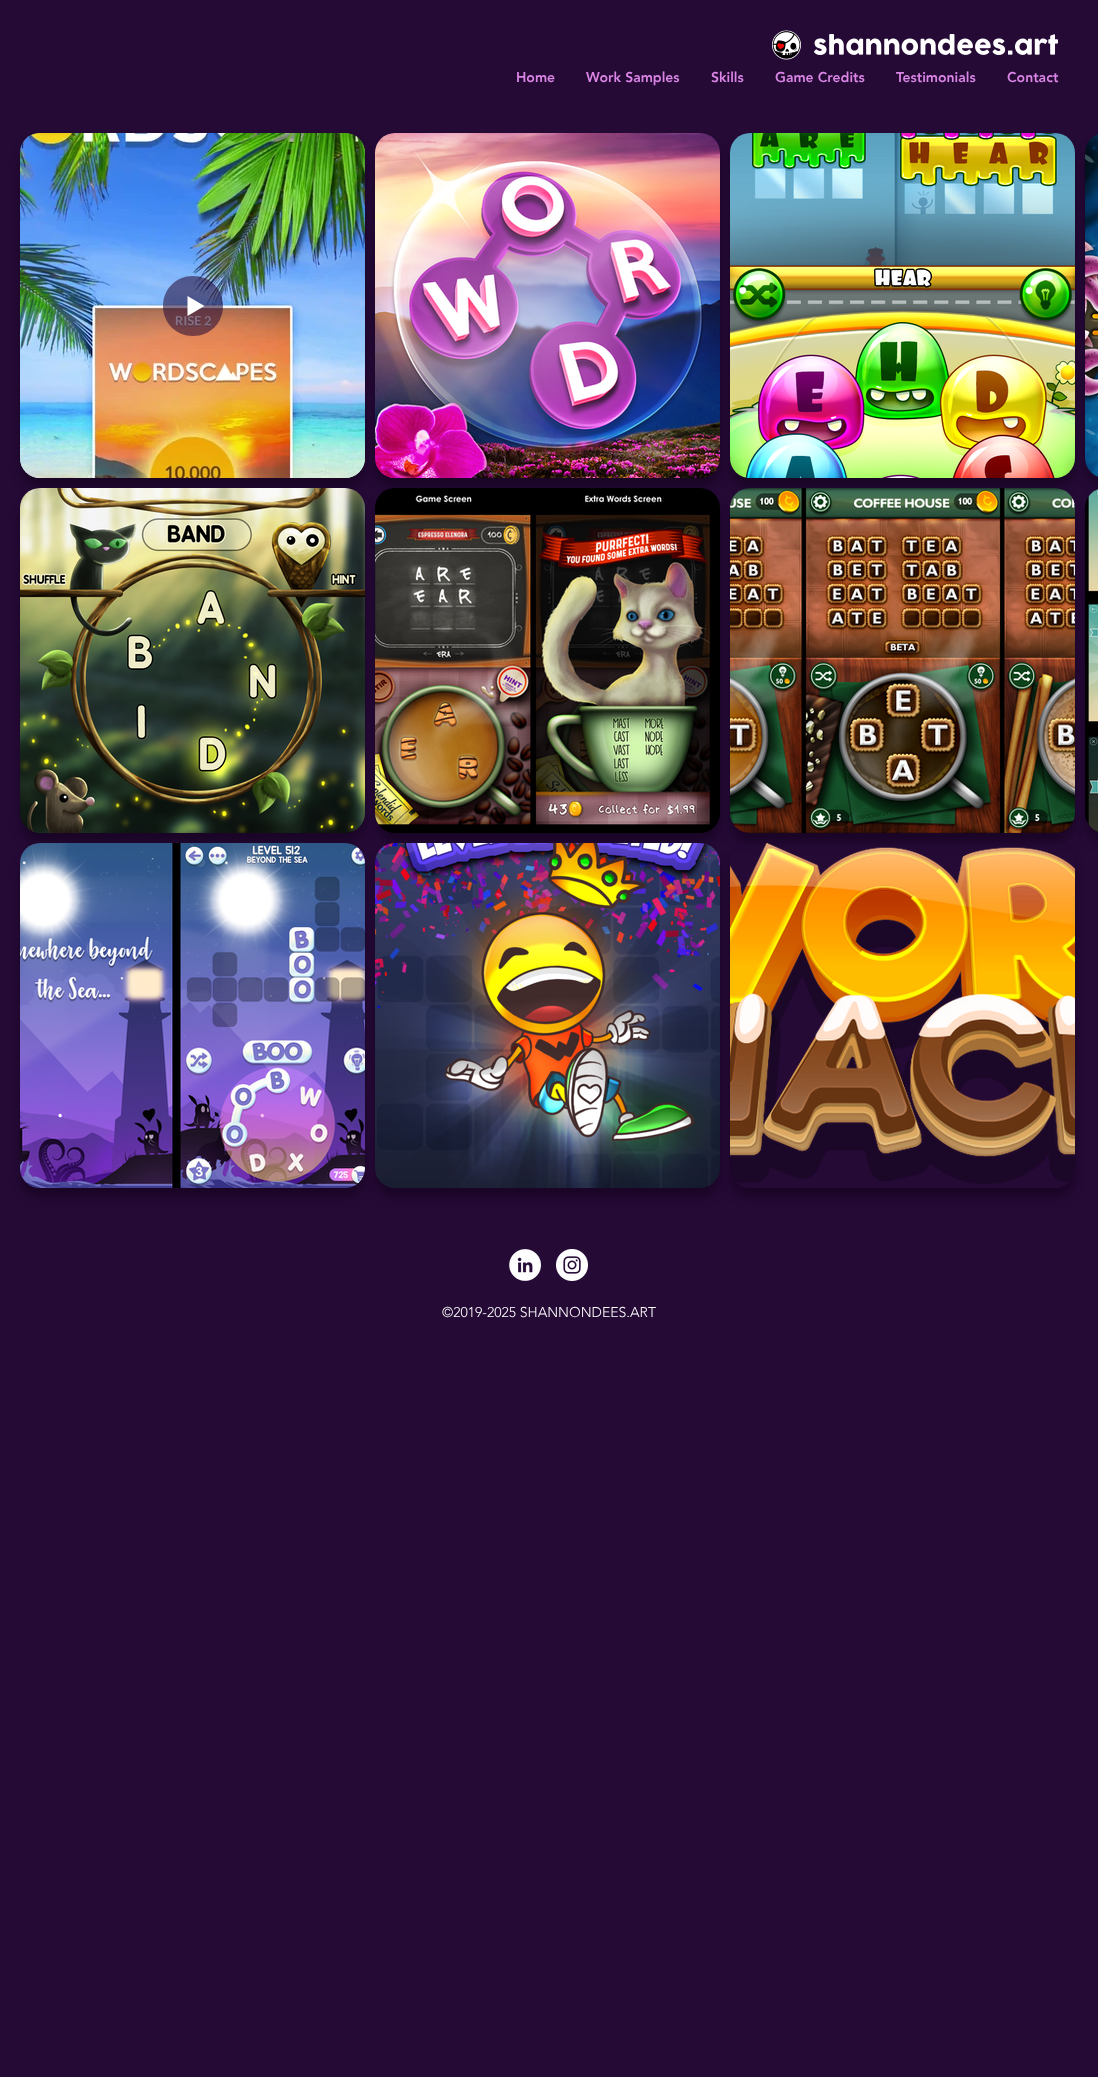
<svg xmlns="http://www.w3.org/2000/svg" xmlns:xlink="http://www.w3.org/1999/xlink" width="1098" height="2077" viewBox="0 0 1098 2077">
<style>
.cls-1{font:900 14px 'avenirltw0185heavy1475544';fill:#da85e5}
.cls-2{font:300 14px 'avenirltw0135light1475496';fill:#ffffff}
</style>
<defs>
<clipPath id="clip1"><path d="M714 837H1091V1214H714ZM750 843H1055C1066 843 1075 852 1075 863V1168C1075 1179 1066 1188 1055 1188H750C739 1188 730 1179 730 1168V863C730 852 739 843 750 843Z" clip-rule="evenodd"/></clipPath>
</defs>
<rect width="100%" height="100%" fill="#250a36"/>
<image xlink:href="image0.png" x="772" y="30" width="29" height="30"/>
<image xlink:href="image1.png" x="814" y="34" width="244" height="21"/>
<rect fill="#0f0018" fill-opacity="0.5" filter="blur(5px)" x="20" y="143" width="345" height="345" rx="20"/>
<image xlink:href="image2.png" x="20" y="133" width="345" height="345"/>
<image xlink:href="image3.png" x="20" y="133" width="345" height="345"/>
<path fill="#250a36" fill-opacity="0.56" fill-rule="evenodd" d="M193 276C210 276 223 289 223 306C223 323 210 336 193 336C176 336 163 323 163 306C163 289 176 276 193 276Z"/>
<path fill="#ffffff" d="M204.5 306L187.5 316V296Z"/>
<rect fill="#0f0018" fill-opacity="0.5" filter="blur(5px)" x="375" y="143" width="345" height="345" rx="20"/>
<image xlink:href="image4.png" x="375" y="133" width="345" height="345"/>
<rect fill="#0f0018" fill-opacity="0.5" filter="blur(5px)" x="730" y="143" width="345" height="345" rx="20"/>
<image xlink:href="image5.png" x="730" y="133" width="345" height="345"/>
<rect fill="#0f0018" fill-opacity="0.5" filter="blur(5px)" x="1085" y="143" width="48" height="345" rx="20"/>
<image xlink:href="image6.png" x="1085" y="134" width="13" height="343"/>
<rect fill="#0f0018" fill-opacity="0.5" filter="blur(5px)" x="20" y="498" width="345" height="345" rx="20"/>
<image xlink:href="image7.png" x="20" y="488" width="345" height="345"/>
<rect fill="#0f0018" fill-opacity="0.5" filter="blur(5px)" x="375" y="498" width="345" height="345" rx="20"/>
<image xlink:href="image8.png" x="375" y="488" width="345" height="345"/>
<rect fill="#0f0018" fill-opacity="0.5" filter="blur(5px)" x="730" y="498" width="345" height="345" rx="20"/>
<image xlink:href="image9.png" x="730" y="488" width="345" height="345"/>
<rect fill="#0f0018" fill-opacity="0.5" filter="blur(5px)" x="1085" y="498" width="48" height="345" rx="20"/>
<image xlink:href="image10.png" x="1085" y="489" width="13" height="343"/>
<rect fill="#0f0018" fill-opacity="0.5" filter="blur(5px)" x="20" y="853" width="345" height="345" rx="20"/>
<image xlink:href="image11.png" x="20" y="843" width="345" height="345"/>
<rect fill="#0f0018" fill-opacity="0.5" filter="blur(5px)" x="375" y="853" width="345" height="345" rx="20"/>
<image xlink:href="image12.png" x="375" y="843" width="345" height="345"/>
<g clip-path="url(#clip1)">
<rect fill="#0f0018" fill-opacity="0.5" filter="blur(5px)" x="730" y="853" width="345" height="345" rx="20"/>
</g>
<image xlink:href="image13.png" x="730" y="843" width="345" height="341"/>
<image xlink:href="image14.png" x="509" y="1249" width="32" height="32"/>
<image xlink:href="image15.png" x="556" y="1249" width="32" height="32"/>
<text class="cls-1" x="516" y="82">Home</text>
<text class="cls-1" x="586" y="82">Work Samples</text>
<text class="cls-1" x="711" y="82">Skills</text>
<text class="cls-1" x="775" y="82">Game Credits</text>
<text class="cls-1" x="896" y="82">Testimonials</text>
<text class="cls-1" x="1007" y="82">Contact</text>
<text class="cls-2" x="442" y="1317">©2019-2025 SHANNONDEES.ART</text>
</svg>
